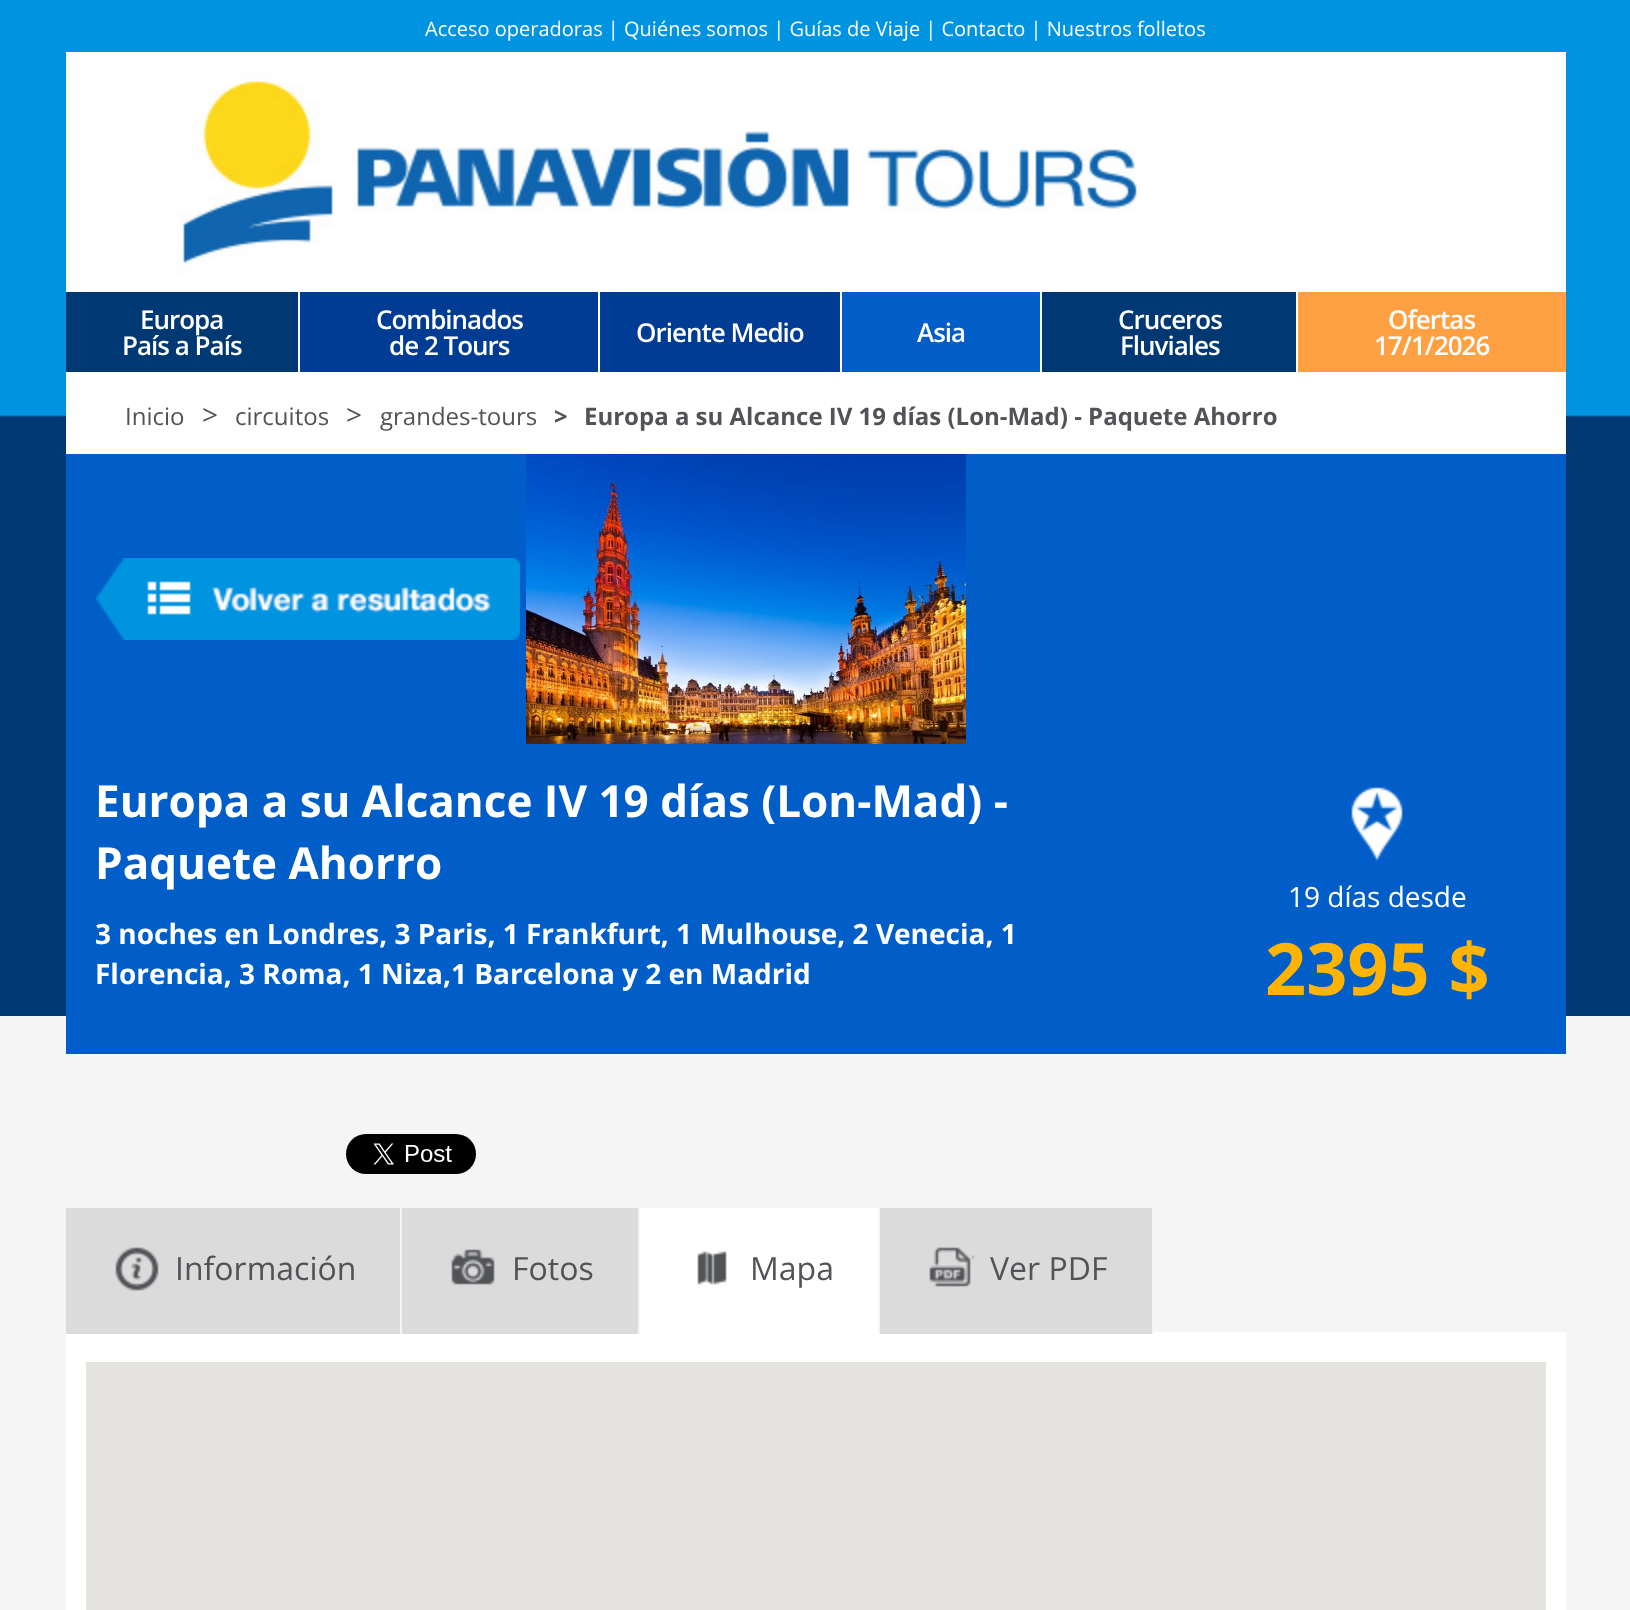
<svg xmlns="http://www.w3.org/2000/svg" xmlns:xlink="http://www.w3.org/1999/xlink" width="1630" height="1610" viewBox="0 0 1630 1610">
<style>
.cls-1{font:20px Open Sans;fill:#ffffff}
.cls-2{font:600 26px Open Sans;letter-spacing:-1px;fill:#ffffff}
.cls-3{font:24px Open Sans;fill:#515357}
.cls-4{font:28px Open Sans;fill:#515357}
.cls-5{font:bold 24px Open Sans;fill:#515357}
.cls-6{font:bold 44px Open Sans;fill:#ffffff}
.cls-7{font:bold 28px Open Sans;fill:#ffffff}
.cls-8{font:28px Open Sans;fill:#ffffff}
.cls-9{font:bold 72px Open Sans;fill:#ffb302}
.cls-10{font:32px Open Sans;fill:#515357}
</style>
<rect width="100%" height="100%" fill="#f5f5f5"/>
<image xlink:href="image0.png" x="0" y="0" width="1630" height="1016"/>
<rect fill="#ffffff" x="66" y="52" width="1500" height="402"/>
<image xlink:href="image1.png" x="176" y="70" width="961" height="205"/>
<rect fill="#003873" x="66" y="292" width="232" height="80"/>
<rect fill="#003c94" x="300" y="292" width="298" height="80"/>
<rect fill="#003c94" x="600" y="292" width="240" height="80"/>
<rect fill="#015ec8" x="842" y="292" width="198" height="80"/>
<rect fill="#003873" x="1042" y="292" width="254" height="80"/>
<rect fill="#ffa042" x="1298" y="292" width="268" height="80"/>
<rect fill="#015ec8" x="66" y="454" width="1500" height="600"/>
<image xlink:href="image2.png" x="96" y="558" width="424" height="82"/>
<image xlink:href="image3.png" x="526" y="454" width="440" height="290"/>
<image xlink:href="image4.png" x="1351" y="787" width="52" height="74"/>
<image xlink:href="image5.png" x="346" y="1134" width="130" height="40"/>
<rect fill="#ffffff" x="66" y="1332" width="1500" height="278"/>
<rect fill="#dbdbdb" x="66" y="1208" width="334" height="126"/>
<rect fill="#f5f5f5" x="400" y="1332" width="2" height="2"/>
<image xlink:href="image6.png" x="115" y="1247" width="44" height="44"/>
<rect fill="#dbdbdb" x="402" y="1208" width="236" height="126"/>
<rect fill="#f5f5f5" x="638" y="1332" width="2" height="2"/>
<image xlink:href="image7.png" x="451" y="1249" width="44" height="36"/>
<rect fill="#ffffff" x="640" y="1208" width="238" height="124"/>
<rect fill="#f5f5f5" x="878" y="1332" width="2" height="2"/>
<image xlink:href="image8.png" x="697" y="1251" width="30" height="34"/>
<rect fill="#dbdbdb" x="880" y="1208" width="272" height="126"/>
<rect fill="#f5f5f5" x="1152" y="1332" width="2" height="2"/>
<image xlink:href="image9.png" x="929" y="1247" width="46" height="40"/>
<rect fill="#e5e3df" x="86" y="1362" width="1460" height="248"/>
<text class="cls-1" x="425" y="36">Acceso operadoras | Quiénes somos | Guías de Viaje | Contacto | Nuestros folletos</text>
<text class="cls-2" x="140" y="329">Europa</text>
<text class="cls-2" x="122" y="355">País a País</text>
<text class="cls-2" x="376" y="329">Combinados</text>
<text class="cls-2" x="389" y="355">de 2 Tours</text>
<text class="cls-2" x="636" y="342">Oriente Medio</text>
<text class="cls-2" x="917" y="342">Asia</text>
<text class="cls-2" x="1118" y="329">Cruceros</text>
<text class="cls-2" x="1120" y="355">Fluviales</text>
<text class="cls-2" x="1388" y="329">Ofertas</text>
<text class="cls-2" x="1374" y="355">17/1/2026</text>
<text class="cls-3" x="125" y="425">Inicio</text>
<text class="cls-4" x="202" y="425">&gt;</text>
<text class="cls-3" x="235" y="425">circuitos</text>
<text class="cls-4" x="346" y="425">&gt;</text>
<text class="cls-3" x="380" y="425">grandes-tours</text>
<text class="cls-5" x="554" y="425">&gt;</text>
<text class="cls-5" x="584" y="425">Europa a su Alcance IV 19 días (Lon-Mad) - Paquete Ahorro</text>
<text class="cls-6"><tspan x="95" y="817">Europa a su Alcance IV 19 días (Lon-Mad) -</tspan><tspan x="95" y="879">Paquete Ahorro</tspan></text>
<text class="cls-7"><tspan x="95" y="944">3 noches en Londres, 3 Paris, 1 Frankfurt, 1 Mulhouse, 2 Venecia, 1</tspan><tspan x="95" y="984">Florencia, 3 Roma, 1 Niza,1 Barcelona y 2 en Madrid</tspan></text>
<text class="cls-8" x="1288" y="907">19 días desde</text>
<text class="cls-9" x="1265" y="995">2395 $</text>
<text class="cls-10" x="175" y="1280">Información</text>
<text class="cls-10" x="512" y="1280">Fotos</text>
<text class="cls-10" x="750" y="1280">Mapa</text>
<text class="cls-10" x="990" y="1280">Ver PDF</text>
</svg>
